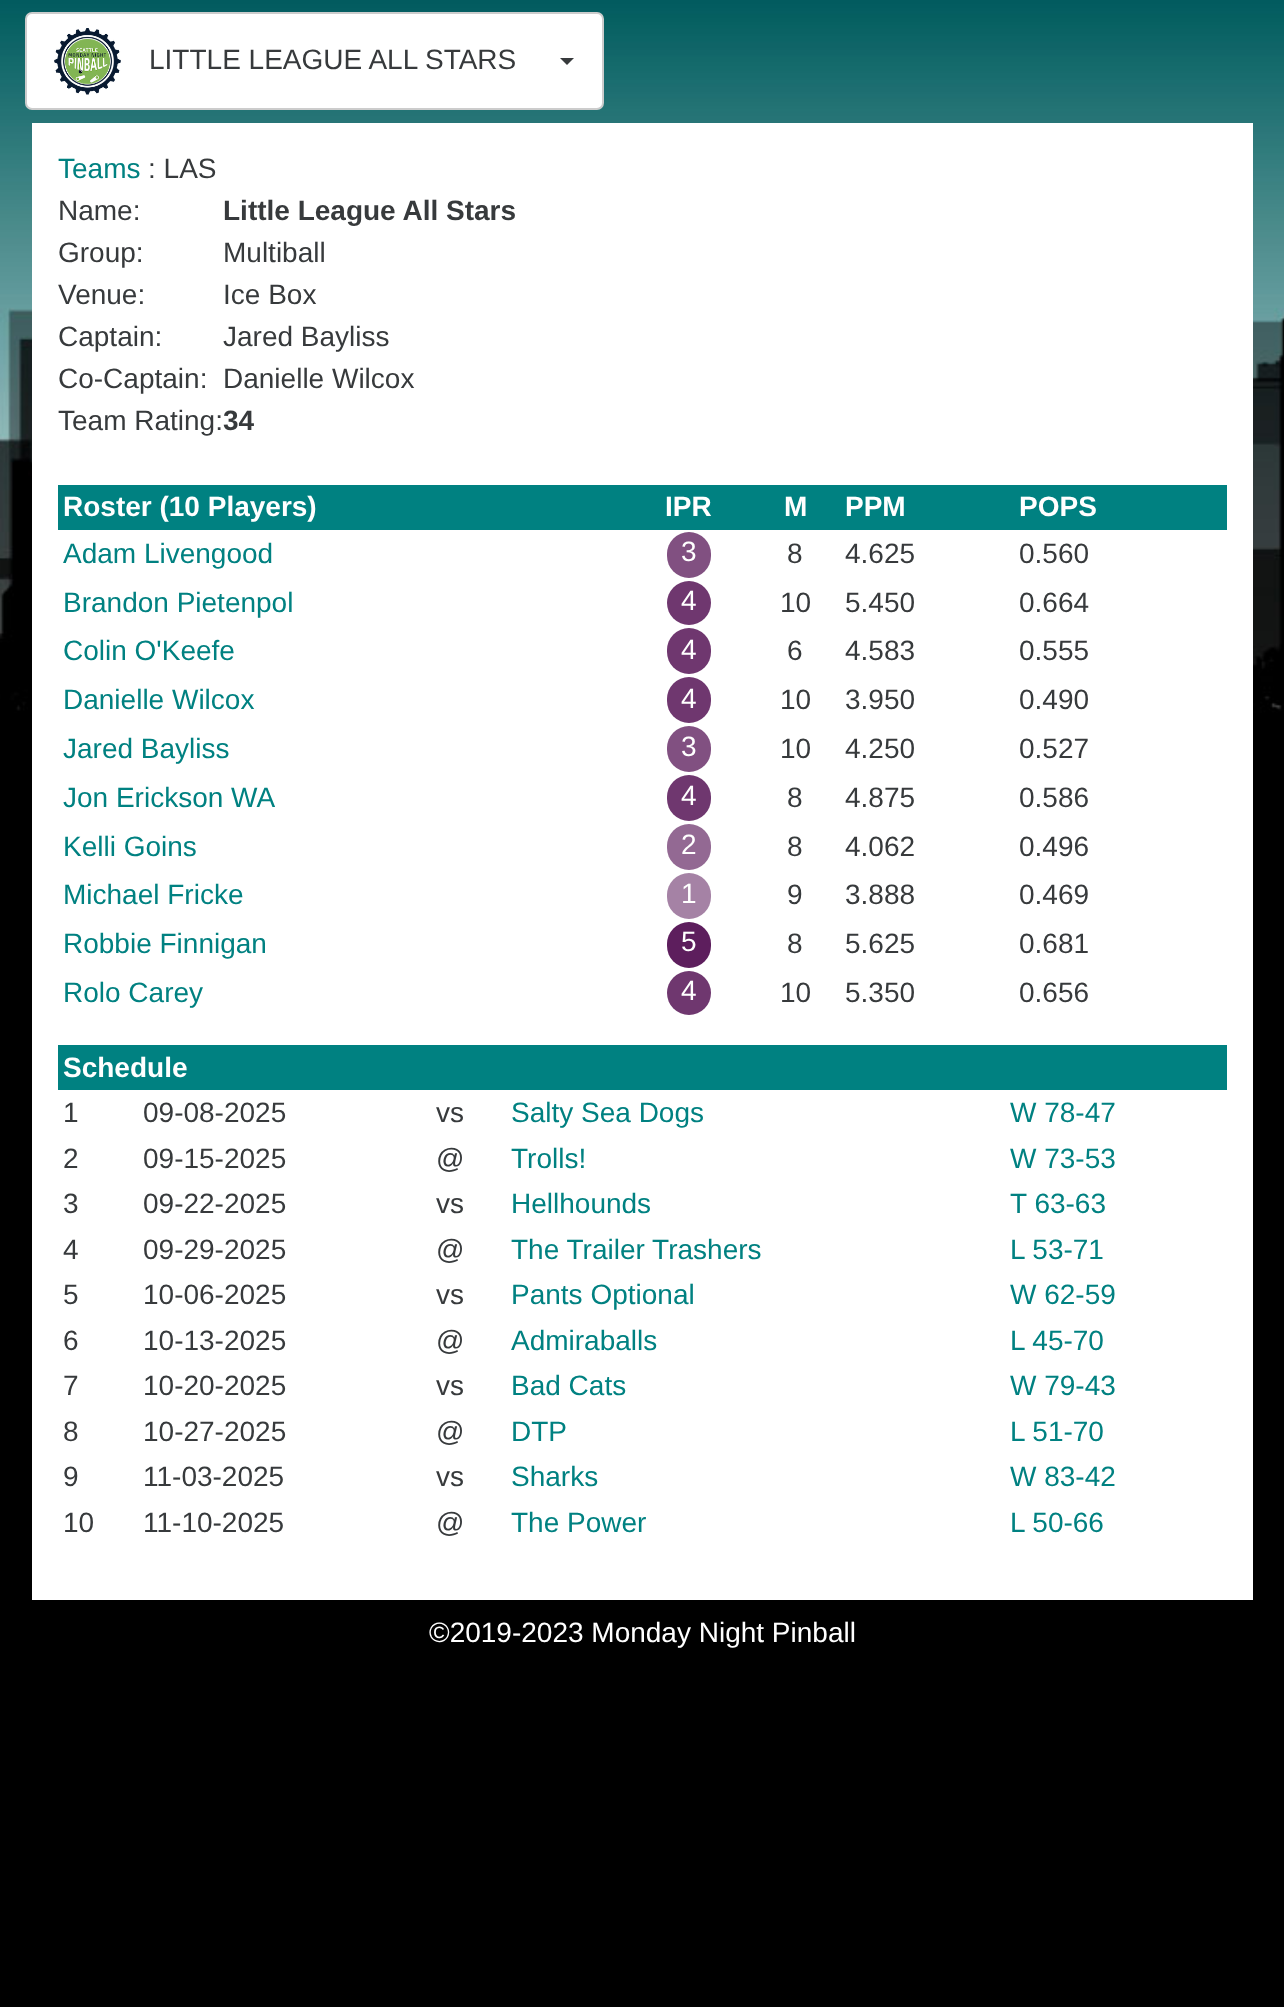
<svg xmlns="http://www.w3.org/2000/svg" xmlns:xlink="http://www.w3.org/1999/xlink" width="1284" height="2007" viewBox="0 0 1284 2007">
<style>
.cls-1{font:28px Liberation Sans;fill:#373a3c}
.cls-2{font:28px Liberation Sans;fill:#008181}
.cls-3{font:bold 28px Liberation Sans;fill:#373a3c}
.cls-4{font:bold 28px Liberation Sans;fill:#ffffff}
.cls-5{font:28px Liberation Sans;fill:#ffffff}
</style>
<rect width="100%" height="100%" fill="#000000"/>
<image xlink:href="image0.png" x="0" y="0" width="1284" height="713"/>
<rect fill="#ffffff" stroke="#cccccc" stroke-width="2" x="26" y="13" width="577" height="96" rx="6"/>
<image xlink:href="image1.png" x="54" y="28" width="67" height="67"/>
<path fill="#373a3c" d="M560 58H574L567 65Z"/>
<rect fill="#ffffff" x="32" y="123" width="1221" height="1477"/>
<rect fill="#008181" x="58" y="485" width="1169" height="45"/>
<rect fill="#815081" x="667" y="532" width="44" height="46" rx="22"/>
<circle fill="#6f376f" cx="689" cy="603" r="22"/>
<rect fill="#6f376f" x="667" y="628" width="44" height="46" rx="22"/>
<rect fill="#6f376f" x="667" y="677" width="44" height="46" rx="22"/>
<rect fill="#815081" x="667" y="726" width="44" height="46" rx="22"/>
<rect fill="#6f376f" x="667" y="775" width="44" height="46" rx="22"/>
<rect fill="#936993" x="667" y="824" width="44" height="46" rx="22"/>
<rect fill="#a582a5" x="667" y="873" width="44" height="46" rx="22"/>
<rect fill="#5d1e5d" x="667" y="922" width="44" height="46" rx="22"/>
<circle fill="#6f376f" cx="689" cy="993" r="22"/>
<rect fill="#008181" x="58" y="1045" width="1169" height="45"/>
<text class="cls-1" x="149" y="69">LITTLE LEAGUE ALL STARS</text>
<text class="cls-2" x="58" y="178">Teams</text>
<text class="cls-1" x="148" y="178">: LAS</text>
<text class="cls-1" x="58" y="220">Name:</text>
<text class="cls-3" x="223" y="220">Little League All Stars</text>
<text class="cls-1" x="58" y="262">Group:</text>
<text class="cls-1" x="223" y="262">Multiball</text>
<text class="cls-1" x="58" y="304">Venue:</text>
<text class="cls-1" x="223" y="304">Ice Box</text>
<text class="cls-1" x="58" y="346">Captain:</text>
<text class="cls-1" x="223" y="346">Jared Bayliss</text>
<text class="cls-1" x="58" y="388">Co-Captain:</text>
<text class="cls-1" x="223" y="388">Danielle Wilcox</text>
<text class="cls-1" x="58" y="430">Team Rating:</text>
<text class="cls-3" x="223" y="430">34</text>
<text class="cls-4" x="63" y="516">Roster (10 Players)</text>
<text class="cls-4" x="665" y="516">IPR</text>
<text class="cls-4" x="784" y="516">M</text>
<text class="cls-4" x="845" y="516">PPM</text>
<text class="cls-4" x="1019" y="516">POPS</text>
<text class="cls-2" x="63" y="563">Adam Livengood</text>
<text class="cls-5" x="681" y="561">3</text>
<text class="cls-1" x="787" y="563">8</text>
<text class="cls-1" x="845" y="563">4.625</text>
<text class="cls-1" x="1019" y="563">0.560</text>
<text class="cls-2" x="63" y="612">Brandon Pietenpol</text>
<text class="cls-5" x="681" y="610">4</text>
<text class="cls-1" x="780" y="612">10</text>
<text class="cls-1" x="845" y="612">5.450</text>
<text class="cls-1" x="1019" y="612">0.664</text>
<text class="cls-2" x="63" y="660">Colin O'Keefe</text>
<text class="cls-5" x="681" y="659">4</text>
<text class="cls-1" x="787" y="660">6</text>
<text class="cls-1" x="845" y="660">4.583</text>
<text class="cls-1" x="1019" y="660">0.555</text>
<text class="cls-2" x="63" y="709">Danielle Wilcox</text>
<text class="cls-5" x="681" y="708">4</text>
<text class="cls-1" x="780" y="709">10</text>
<text class="cls-1" x="845" y="709">3.950</text>
<text class="cls-1" x="1019" y="709">0.490</text>
<text class="cls-2" x="63" y="758">Jared Bayliss</text>
<text class="cls-5" x="681" y="756">3</text>
<text class="cls-1" x="780" y="758">10</text>
<text class="cls-1" x="845" y="758">4.250</text>
<text class="cls-1" x="1019" y="758">0.527</text>
<text class="cls-2" x="63" y="807">Jon Erickson WA</text>
<text class="cls-5" x="681" y="805">4</text>
<text class="cls-1" x="787" y="807">8</text>
<text class="cls-1" x="845" y="807">4.875</text>
<text class="cls-1" x="1019" y="807">0.586</text>
<text class="cls-2" x="63" y="856">Kelli Goins</text>
<text class="cls-5" x="681" y="854">2</text>
<text class="cls-1" x="787" y="856">8</text>
<text class="cls-1" x="845" y="856">4.062</text>
<text class="cls-1" x="1019" y="856">0.496</text>
<text class="cls-2" x="63" y="904">Michael Fricke</text>
<text class="cls-5" x="681" y="903">1</text>
<text class="cls-1" x="787" y="904">9</text>
<text class="cls-1" x="845" y="904">3.888</text>
<text class="cls-1" x="1019" y="904">0.469</text>
<text class="cls-2" x="63" y="953">Robbie Finnigan</text>
<text class="cls-5" x="681" y="951">5</text>
<text class="cls-1" x="787" y="953">8</text>
<text class="cls-1" x="845" y="953">5.625</text>
<text class="cls-1" x="1019" y="953">0.681</text>
<text class="cls-2" x="63" y="1002">Rolo Carey</text>
<text class="cls-5" x="681" y="1000">4</text>
<text class="cls-1" x="780" y="1002">10</text>
<text class="cls-1" x="845" y="1002">5.350</text>
<text class="cls-1" x="1019" y="1002">0.656</text>
<text class="cls-4" x="63" y="1077">Schedule</text>
<text class="cls-1" x="63" y="1122">1</text>
<text class="cls-1" x="143" y="1122">09-08-2025</text>
<text class="cls-1" x="436" y="1122">vs</text>
<text class="cls-2" x="511" y="1122">Salty Sea Dogs</text>
<text class="cls-2" x="1010" y="1122">W 78-47</text>
<text class="cls-1" x="63" y="1168">2</text>
<text class="cls-1" x="143" y="1168">09-15-2025</text>
<text class="cls-1" x="436" y="1168">@</text>
<text class="cls-2" x="511" y="1168">Trolls!</text>
<text class="cls-2" x="1010" y="1168">W 73-53</text>
<text class="cls-1" x="63" y="1213">3</text>
<text class="cls-1" x="143" y="1213">09-22-2025</text>
<text class="cls-1" x="436" y="1213">vs</text>
<text class="cls-2" x="511" y="1213">Hellhounds</text>
<text class="cls-2" x="1010" y="1213">T 63-63</text>
<text class="cls-1" x="63" y="1259">4</text>
<text class="cls-1" x="143" y="1259">09-29-2025</text>
<text class="cls-1" x="436" y="1259">@</text>
<text class="cls-2" x="511" y="1259">The Trailer Trashers</text>
<text class="cls-2" x="1010" y="1259">L 53-71</text>
<text class="cls-1" x="63" y="1304">5</text>
<text class="cls-1" x="143" y="1304">10-06-2025</text>
<text class="cls-1" x="436" y="1304">vs</text>
<text class="cls-2" x="511" y="1304">Pants Optional</text>
<text class="cls-2" x="1010" y="1304">W 62-59</text>
<text class="cls-1" x="63" y="1350">6</text>
<text class="cls-1" x="143" y="1350">10-13-2025</text>
<text class="cls-1" x="436" y="1350">@</text>
<text class="cls-2" x="511" y="1350">Admiraballs</text>
<text class="cls-2" x="1010" y="1350">L 45-70</text>
<text class="cls-1" x="63" y="1395">7</text>
<text class="cls-1" x="143" y="1395">10-20-2025</text>
<text class="cls-1" x="436" y="1395">vs</text>
<text class="cls-2" x="511" y="1395">Bad Cats</text>
<text class="cls-2" x="1010" y="1395">W 79-43</text>
<text class="cls-1" x="63" y="1441">8</text>
<text class="cls-1" x="143" y="1441">10-27-2025</text>
<text class="cls-1" x="436" y="1441">@</text>
<text class="cls-2" x="511" y="1441">DTP</text>
<text class="cls-2" x="1010" y="1441">L 51-70</text>
<text class="cls-1" x="63" y="1486">9</text>
<text class="cls-1" x="143" y="1486">11-03-2025</text>
<text class="cls-1" x="436" y="1486">vs</text>
<text class="cls-2" x="511" y="1486">Sharks</text>
<text class="cls-2" x="1010" y="1486">W 83-42</text>
<text class="cls-1" x="63" y="1532">10</text>
<text class="cls-1" x="143" y="1532">11-10-2025</text>
<text class="cls-1" x="436" y="1532">@</text>
<text class="cls-2" x="511" y="1532">The Power</text>
<text class="cls-2" x="1010" y="1532">L 50-66</text>
<text class="cls-5" x="429" y="1642">©2019-2023 Monday Night Pinball</text>
</svg>
